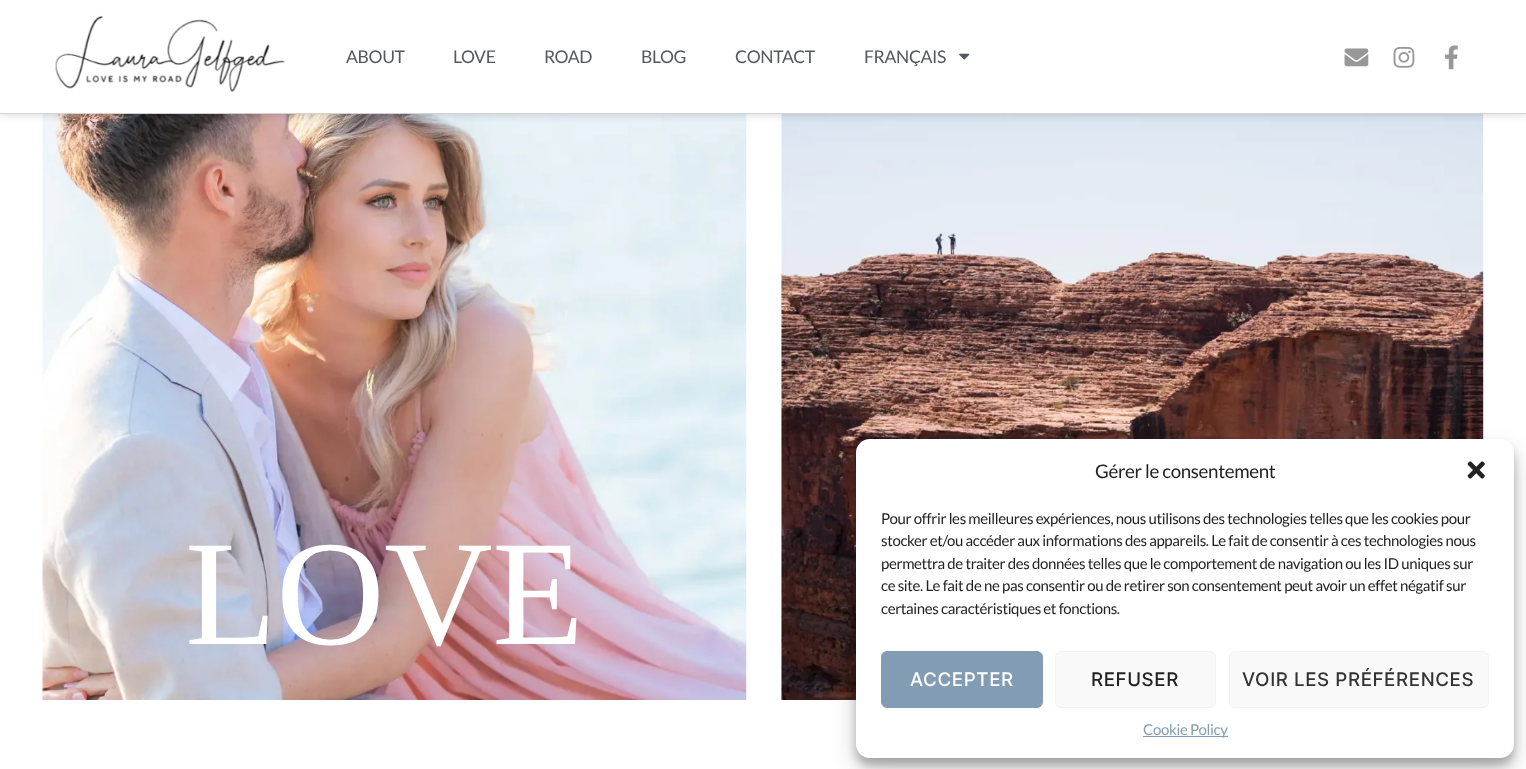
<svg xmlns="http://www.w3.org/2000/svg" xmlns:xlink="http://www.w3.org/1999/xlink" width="1526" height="769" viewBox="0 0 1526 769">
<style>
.cls-1{font:17.5px Lato;letter-spacing:-0.35px;fill:#54595f}
.cls-2{font:150px Liberation Serif;letter-spacing:-0.35px;fill:#ffffff}
.cls-3{font:18.75px Lato;letter-spacing:-0.35px;fill:#222222}
.cls-4{font:15px Lato;letter-spacing:-0.35px;fill:#222222}
.cls-5{font:500 18.75px Inter;letter-spacing:0.6px;fill:#ffffff}
.cls-6{font:500 18.75px Inter;letter-spacing:0.6px;fill:#222222}
.cls-7{font:500 18.75px Inter;letter-spacing:0.6px;fill:#333333}
.cls-8{font:15px Lato;letter-spacing:-0.35px;fill:#829db3}
</style>
<rect width="100%" height="100%" fill="#ffffff"/>
<image xlink:href="image5.png" x="42" y="114" width="705" height="586"/>
<image xlink:href="image6.png" x="781" y="114" width="703" height="586"/>
<rect fill="#000000" fill-opacity="0.18" filter="blur(5px)" x="0" y="0" width="1526" height="114"/>
<rect fill="#ffffff" x="0" y="0" width="1526" height="113"/>
<rect fill="#d3d3d3" x="0" y="113" width="1526" height="1"/>
<image xlink:href="image0.png" x="55" y="15" width="230" height="78"/>
<image xlink:href="image1.png" x="959" y="53" width="11" height="7"/>
<image xlink:href="image2.png" x="1344" y="48" width="25" height="19"/>
<image xlink:href="image3.png" x="1393" y="46" width="22" height="22"/>
<image xlink:href="image4.png" x="1445" y="45" width="13" height="25"/>
<rect fill="#000000" fill-opacity="0.23" filter="blur(4px)" x="856" y="446" width="658" height="319" rx="14"/>
<rect fill="#000000" fill-opacity="0.19" filter="blur(12.5px)" x="856" y="451" width="658" height="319" rx="14"/>
<rect fill="#ffffff" x="856" y="439" width="658" height="319" rx="14"/>
<image xlink:href="image7.png" x="1467" y="461" width="18" height="18"/>
<rect fill="#829db3" stroke="#829db3" x="881.5" y="651.5" width="161" height="56" rx="5.5"/>
<rect fill="#f9f9f9" stroke="#f2f2f2" x="1055.5" y="651.5" width="160" height="56" rx="5.5"/>
<rect fill="#f9f9f9" stroke="#f2f2f2" x="1229.5" y="651.5" width="259" height="56" rx="5.5"/>
<rect fill="#829db3" x="1143" y="736" width="85" height="1"/>
<text class="cls-1" x="346" y="63">ABOUT</text>
<text class="cls-1" x="453" y="63">LOVE</text>
<text class="cls-1" x="544" y="63">ROAD</text>
<text class="cls-1" x="641" y="63">BLOG</text>
<text class="cls-1" x="735" y="63">CONTACT</text>
<text class="cls-1" x="864" y="63">FRANÇAIS</text>
<text class="cls-2" x="185" y="644">LOVE</text>
<text class="cls-3" x="1095" y="478">Gérer le consentement</text>
<text class="cls-4"><tspan x="881" y="524">Pour offrir les meilleures expériences, nous utilisons des technologies telles que les cookies pour</tspan><tspan x="881" y="546">stocker et/ou accéder aux informations des appareils. Le fait de consentir à ces technologies nous</tspan><tspan x="881" y="569">permettra de traiter des données telles que le comportement de navigation ou les ID uniques sur</tspan><tspan x="881" y="591">ce site. Le fait de ne pas consentir ou de retirer son consentement peut avoir un effet négatif sur</tspan><tspan x="881" y="614">certaines caractéristiques et fonctions.</tspan></text>
<text class="cls-5" x="910" y="686">ACCEPTER</text>
<text class="cls-6" x="1091" y="686">REFUSER</text>
<text class="cls-7" x="1242" y="686">VOIR LES PRÉFÉRENCES</text>
<text class="cls-8" x="1143" y="735">Cookie Policy</text>
</svg>
